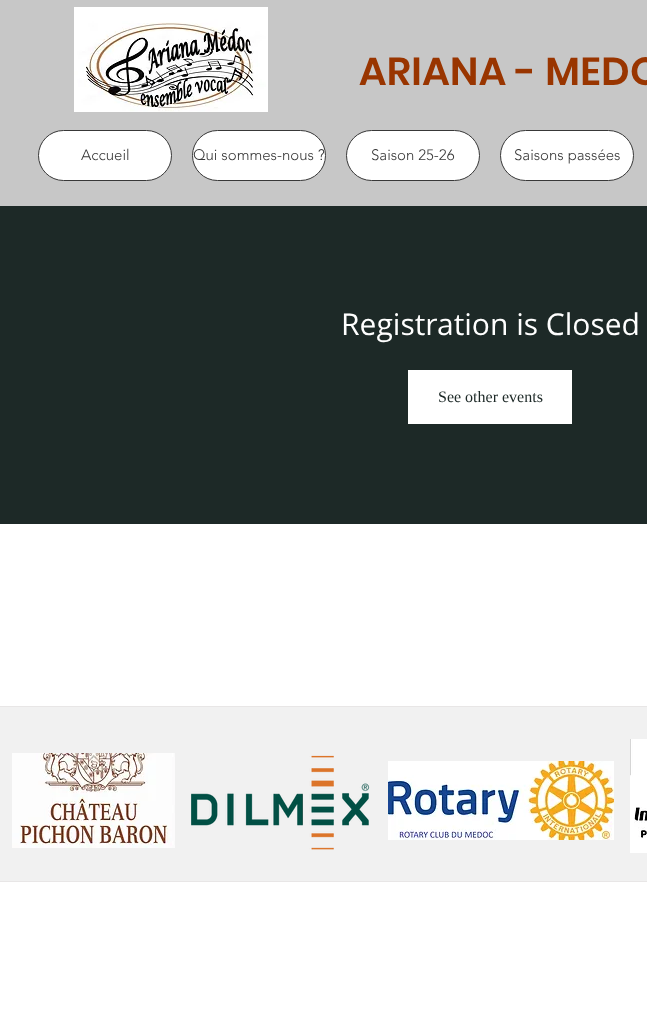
<svg xmlns="http://www.w3.org/2000/svg" xmlns:xlink="http://www.w3.org/1999/xlink" width="647" height="1035" viewBox="0 0 647 1035">
<style>
.cls-1{font:600 39px Poppins;letter-spacing:0.4px;fill:#993500}
.cls-2{font:300 15px 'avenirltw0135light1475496';fill:#383838}
.cls-3{font:30px Open Sans;fill:#ffffff}
.cls-4{font:16px Liberation Serif;fill:#1d2927}
</style>
<rect width="100%" height="100%" fill="#ffffff"/>
<rect fill="#c7c7c7" x="0" y="0" width="647" height="206"/>
<image xlink:href="image0.png" x="74" y="7" width="194" height="105"/>
<rect fill="#ffffff" stroke="#383838" x="38.5" y="130.5" width="133" height="50" rx="25"/>
<rect fill="#ffffff" stroke="#383838" x="192.5" y="130.5" width="133" height="50" rx="25"/>
<rect fill="#ffffff" stroke="#383838" x="346.5" y="130.5" width="133" height="50" rx="25"/>
<rect fill="#ffffff" stroke="#383838" x="500.5" y="130.5" width="133" height="50" rx="25"/>
<rect fill="#1d2927" x="0" y="206" width="647" height="318"/>
<rect fill="#ffffff" x="408" y="370" width="164" height="54"/>
<rect fill="#e8e6e6" x="0" y="706" width="647" height="1"/>
<rect fill="#e8e6e6" x="0" y="881" width="647" height="1"/>
<rect fill="#f1f1f1" x="0" y="707" width="647" height="174"/>
<image xlink:href="image1.png" x="12" y="753" width="163" height="95"/>
<image xlink:href="image2.png" x="191" y="755" width="179" height="95"/>
<image xlink:href="image3.png" x="388" y="761" width="226" height="79"/>
<image xlink:href="image4.png" x="630" y="739" width="17" height="114"/>
<text class="cls-1" x="359" y="85">ARIANA - MEDO</text>
<text class="cls-2" x="81" y="160">Accueil</text>
<text class="cls-2" x="193" y="160">Qui sommes-nous ?</text>
<text class="cls-2" x="371" y="160">Saison 25-26</text>
<text class="cls-2" x="514" y="160">Saisons passées</text>
<text class="cls-3" x="341" y="335">Registration is Closed</text>
<text class="cls-4" x="438" y="402">See other events</text>
</svg>
